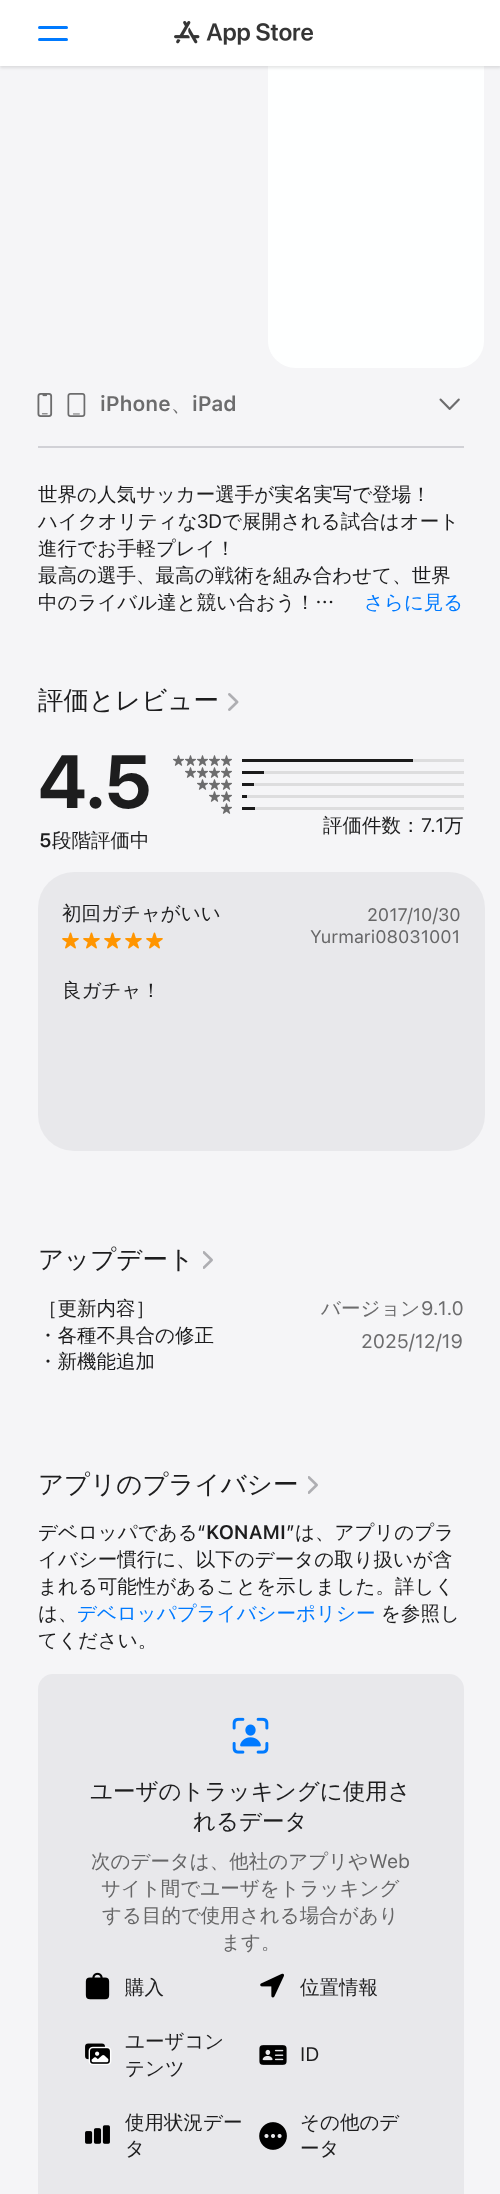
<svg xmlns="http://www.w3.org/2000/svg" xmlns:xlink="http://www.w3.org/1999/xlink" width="500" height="2194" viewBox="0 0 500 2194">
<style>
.cls-1{font:600 21px SF;fill:#6c6c6d}
.cls-2{font:500 21px WenQuanYi Zen Hei;fill:#6c6c6d}
.cls-3{font:500 19.5px WenQuanYi Zen Hei;fill:#1d1d1e}
.cls-4{font:19.5px 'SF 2';fill:#1d1d1e}
.cls-5{font:500 19.5px WenQuanYi Zen Hei;fill:#007aff}
.cls-6{font:500 25.5px WenQuanYi Zen Hei;fill:#1d1d1e}
.cls-7{font:bold 75px SF;fill:#1d1d1e}
.cls-8{font:600 19.5px SF;fill:#1d1d1e}
.cls-9{font:19.5px SF;fill:#1d1d1e}
.cls-10{font:18px SF;fill:#666667}
.cls-11{font:500 19.5px WenQuanYi Zen Hei;fill:#6c6c6d}
.cls-12{font:19.5px SF;fill:#6c6c6d}
.cls-13{font:500 22.5px WenQuanYi Zen Hei;fill:#1d1d1e}
.cls-14{font:500 19.5px WenQuanYi Zen Hei;fill:#666667}
.cls-15{font:19.5px SF;fill:#666667}
</style>
<rect width="100%" height="100%" fill="#f5f5f7"/>
<path fill="#feffff" d="M296-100H457C472-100 484-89 484-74V341C484 347 482 353 478 358C473 364 466 368 457 368H296C281 368 268 356 268 341V-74C268-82 272-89 278-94C283-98 289-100 296-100Z"/>
<rect fill="#000000" fill-opacity="0.1" filter="blur(1.5px)" x="0" y="2" width="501" height="66"/>
<rect fill="#ffffff" x="0" y="0" width="500" height="66"/>
<rect fill="#007aff" x="38" y="26" width="30" height="3" rx="1.5"/>
<rect fill="#007aff" x="38" y="38" width="30" height="3" rx="1.5"/>
<image xlink:href="image0.png" x="174" y="21" width="139" height="24"/>
<image xlink:href="image1.png" x="37" y="393" width="16" height="24"/>
<image xlink:href="image2.png" x="67" y="393" width="19" height="24"/>
<image xlink:href="image3.png" x="439" y="398" width="21" height="12"/>
<rect fill="#d1d1d6" x="38" y="446" width="426" height="2"/>
<image xlink:href="image4.png" x="228" y="693" width="11" height="18"/>
<image xlink:href="image5.png" x="173" y="755" width="11" height="11"/>
<image xlink:href="image5.png" x="185" y="755" width="11" height="11"/>
<image xlink:href="image5.png" x="197" y="755" width="11" height="11"/>
<image xlink:href="image5.png" x="209" y="755" width="11" height="11"/>
<image xlink:href="image5.png" x="221" y="755" width="11" height="11"/>
<rect fill="#ddddde" x="413" y="759" width="51" height="3"/>
<rect fill="#1b1b1b" x="242" y="759" width="171" height="3"/>
<image xlink:href="image5.png" x="185" y="767" width="11" height="11"/>
<image xlink:href="image5.png" x="197" y="767" width="11" height="11"/>
<image xlink:href="image5.png" x="209" y="767" width="11" height="11"/>
<image xlink:href="image5.png" x="221" y="767" width="11" height="11"/>
<rect fill="#ddddde" x="264" y="771" width="200" height="3"/>
<rect fill="#1b1b1b" x="242" y="771" width="22" height="3"/>
<image xlink:href="image5.png" x="197" y="779" width="11" height="11"/>
<image xlink:href="image5.png" x="209" y="779" width="11" height="11"/>
<image xlink:href="image5.png" x="221" y="779" width="11" height="11"/>
<rect fill="#ddddde" x="254" y="783" width="210" height="3"/>
<rect fill="#1b1b1b" x="242" y="783" width="12" height="3"/>
<image xlink:href="image5.png" x="209" y="791" width="11" height="11"/>
<image xlink:href="image5.png" x="221" y="791" width="11" height="11"/>
<rect fill="#ddddde" x="242" y="795" width="222" height="3"/>
<rect fill="#1b1b1b" x="242" y="795" width="5" height="3"/>
<image xlink:href="image5.png" x="221" y="803" width="11" height="11"/>
<rect fill="#ddddde" x="255" y="807" width="209" height="3"/>
<rect fill="#1b1b1b" x="242" y="807" width="13" height="3"/>
<rect fill="#e8e8eb" x="38" y="872" width="447" height="279" rx="36"/>
<image xlink:href="image6.png" x="62" y="932" width="17" height="17"/>
<image xlink:href="image6.png" x="83" y="932" width="17" height="17"/>
<image xlink:href="image6.png" x="104" y="932" width="17" height="17"/>
<image xlink:href="image6.png" x="125" y="932" width="17" height="17"/>
<image xlink:href="image6.png" x="146" y="932" width="17" height="17"/>
<image xlink:href="image7.png" x="203" y="1251" width="10" height="18"/>
<image xlink:href="image7.png" x="308" y="1476" width="10" height="18"/>
<rect fill="#e8e8eb" x="38" y="1674" width="426" height="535" rx="15"/>
<image xlink:href="image8.png" x="232" y="1717" width="37" height="37"/>
<image xlink:href="image9.png" x="85" y="1972" width="25" height="28"/>
<image xlink:href="image10.png" x="260" y="1973" width="24" height="25"/>
<image xlink:href="image11.png" x="85" y="2043" width="27" height="22"/>
<image xlink:href="image12.png" x="259" y="2045" width="28" height="20"/>
<image xlink:href="image13.png" x="85" y="2125" width="25" height="19"/>
<image xlink:href="image14.png" x="259" y="2122" width="28" height="28"/>
<text class="cls-1" x="100" y="411">iPhone</text>
<text class="cls-2" x="171" y="411">、</text>
<text class="cls-1" x="192" y="411">iPad</text>
<text class="cls-3"><tspan x="38" y="501">世界の人気サッカー選手が実名実写で登場！</tspan><tspan x="38" y="528">ハイクオリティな</tspan></text>
<text class="cls-4" x="197" y="528">3D</text>
<text class="cls-3" x="222" y="528">で展開される試合はオート</text>
<text class="cls-3"><tspan x="38" y="555">進行でお手軽プレイ！</tspan><tspan x="38" y="582">最高の選手、最高の戦術を組み合わせて、世界</tspan><tspan x="38" y="609">中のライバル達と競い合おう！…</tspan></text>
<text class="cls-5" x="364" y="609">さらに見る</text>
<text class="cls-6" x="38" y="709">評価とレビュー</text>
<text class="cls-7" x="38" y="808">4.5</text>
<text class="cls-8" x="39" y="847">5</text>
<text class="cls-3" x="52" y="847">段階評価中</text>
<text class="cls-3" x="323" y="832">評価件数：</text>
<text class="cls-9" x="421" y="832">7.1</text>
<text class="cls-3" x="444" y="832">万</text>
<text class="cls-3" x="62" y="920">初回ガチャがいい</text>
<text class="cls-10" x="367" y="921">2017/10/30</text>
<text class="cls-10" x="310" y="943">Yurmari08031001</text>
<text class="cls-3" x="62" y="997">良ガチャ！</text>
<text class="cls-6" x="38" y="1268">アップデート</text>
<text class="cls-3"><tspan x="38" y="1315">［更新内容］</tspan><tspan x="38" y="1342">・各種不具合の修正</tspan><tspan x="38" y="1368">・新機能追加</tspan></text>
<text class="cls-11" x="321" y="1315">バージョン</text>
<text class="cls-12" x="421" y="1315">9.1.0</text>
<text class="cls-12" x="361" y="1348">2025/12/19</text>
<text class="cls-6" x="38" y="1493">アプリのプライバシー</text>
<text class="cls-3" x="38" y="1539">デベロッパである</text>
<text class="cls-9" x="197" y="1539">“</text>
<text class="cls-8" x="206" y="1539">KONAMI</text>
<text class="cls-9" x="286" y="1539">”</text>
<text class="cls-3" x="295" y="1539">は、アプリのプラ</text>
<text class="cls-3"><tspan x="38" y="1566">イバシー慣行に、以下のデータの取り扱いが含</tspan><tspan x="38" y="1593">まれる可能性があることを示しました。詳しく</tspan><tspan x="38" y="1620">は、</tspan></text>
<text class="cls-5" x="77" y="1620">デベロッパプライバシーポリシー</text>
<text class="cls-3" x="381" y="1620">を参照し</text>
<text class="cls-3" x="38" y="1647">てください。</text>
<text class="cls-13" x="90" y="1799">ユーザのトラッキングに使用さ</text>
<text class="cls-13" x="193" y="1829">れるデータ</text>
<text class="cls-14" x="91" y="1868">次のデータは、他社のアプリや</text>
<text class="cls-15" x="369" y="1868">Web</text>
<text class="cls-14" x="101" y="1895">サイト間でユーザをトラッキング</text>
<text class="cls-14" x="102" y="1922">する目的で使用される場合があり</text>
<text class="cls-14" x="221" y="1949">ます。</text>
<text class="cls-3" x="125" y="1994">購入</text>
<text class="cls-3" x="300" y="1994">位置情報</text>
<text class="cls-3"><tspan x="125" y="2048">ユーザコン</tspan><tspan x="125" y="2075">テンツ</tspan></text>
<text class="cls-9" x="300" y="2061">ID</text>
<text class="cls-3"><tspan x="125" y="2129">使用状況デー</tspan><tspan x="125" y="2155">タ</tspan></text>
<text class="cls-3"><tspan x="300" y="2129">その他のデ</tspan><tspan x="300" y="2155">ータ</tspan></text>
</svg>
